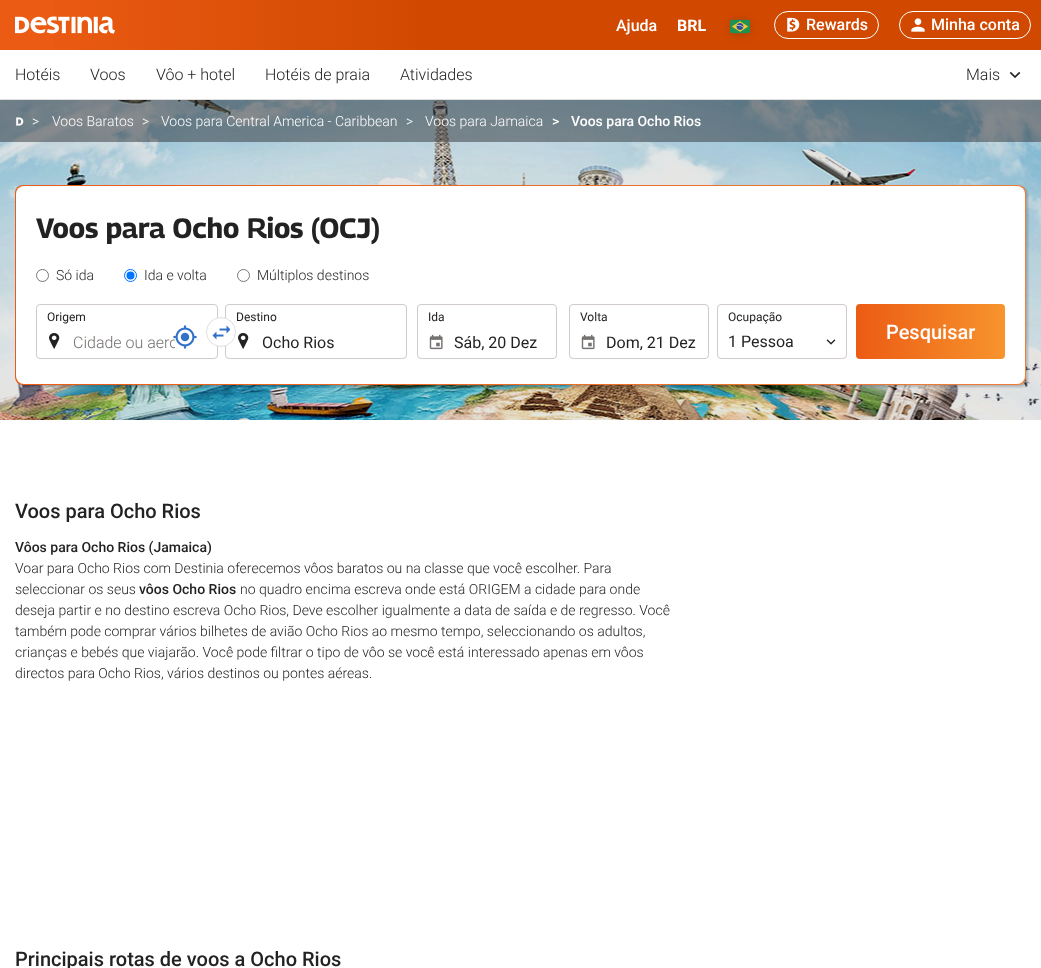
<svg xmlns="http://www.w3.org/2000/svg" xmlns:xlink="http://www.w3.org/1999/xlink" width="1041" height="968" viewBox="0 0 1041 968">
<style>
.cls-1{font:500 16px Roboto;fill:#ffffff}
.cls-2{font:bold 16px Roboto;fill:#ffffff}
.cls-3{font:300 16px Roboto;fill:#222222}
.cls-4{font:300 14px Roboto;fill:#ffffff}
.cls-5{font:500 14px Roboto;fill:#ffffff}
.cls-6{font:bold 28px Georama;fill:#222222}
.cls-7{font:300 14px Roboto;fill:#222222}
.cls-8{font:12px Roboto;fill:#222222}
.cls-9{font:300 16px Roboto;fill:#74716e}
.cls-10{font:16px Roboto;fill:#222222}
.cls-11{font:500 20px Roboto;fill:#ffffff}
.cls-12{font:500 20px Roboto;fill:#222222}
.cls-13{font:500 14px Roboto;fill:#222222}
</style>
<defs>
<linearGradient id="g1" gradientUnits="userSpaceOnUse" x1="0" y1="25" x2="1041" y2="25"><stop offset="0" stop-color="#ec5b14"/><stop offset="0.49" stop-color="#ec5b14"/><stop offset="0.5" stop-color="#d14900"/><stop offset="1" stop-color="#d14900"/></linearGradient>
<linearGradient id="g2" gradientUnits="userSpaceOnUse" x1="15" y1="25" x2="606" y2="25"><stop offset="0" stop-color="#ec5b14"/><stop offset="0.7" stop-color="#d14900"/></linearGradient>
<linearGradient id="g3" gradientUnits="userSpaceOnUse" x1="1026" y1="285" x2="15" y2="285"><stop offset="0" stop-color="#ee7e38"/><stop offset="1" stop-color="#ec5b14"/></linearGradient>
<linearGradient id="g4" gradientUnits="userSpaceOnUse" x1="1005" y1="332" x2="856" y2="332"><stop offset="0" stop-color="#f7942d"/><stop offset="1" stop-color="#ec5b14"/></linearGradient>
<clipPath id="clip1"><rect x="73" y="333" width="102" height="19"/></clipPath>
</defs>
<rect width="100%" height="100%" fill="#ffffff"/>
<rect fill="url(#g1)" x="0" y="0" width="1041" height="50"/>
<rect fill="url(#g2)" x="53" y="0" width="467" height="50"/>
<image xlink:href="image0.png" x="15" y="16" width="100" height="18"/>
<rect fill="#000000" fill-opacity="0.15" filter="blur(4px)" x="730" y="20" width="20" height="15"/>
<image xlink:href="image1.png" x="730" y="19" width="20" height="15"/>
<rect fill="none" stroke="#ffffff" x="774.5" y="11.5" width="104" height="27" rx="13.5"/>
<image xlink:href="image2.png" x="787" y="17" width="13" height="15"/>
<rect fill="none" stroke="#ffffff" x="899.5" y="11.5" width="131" height="27" rx="13.5"/>
<image xlink:href="image3.png" x="911" y="18" width="14" height="14"/>
<image xlink:href="image4.png" x="1009" y="71" width="12" height="7"/>
<rect fill="#dfdfdf" x="0" y="99" width="1041" height="1"/>
<image xlink:href="image6.png" x="0" y="100" width="1041" height="320"/>
<rect fill="#303235" fill-opacity="0.5" x="0" y="100" width="1041" height="42"/>
<image xlink:href="image5.png" x="16" y="117" width="8" height="9"/>
<rect fill="#000000" fill-opacity="0.2" filter="blur(1px)" x="17" y="187" width="1011" height="200" rx="8"/>
<rect fill="url(#g3)" x="15" y="185" width="1011" height="200" rx="8"/>
<rect fill="#ffffff" x="16" y="186" width="1009" height="198" rx="8"/>
<circle fill="none" stroke="#767676" cx="42.5" cy="275.5" r="6"/>
<circle fill="none" stroke="#0075ff" cx="130.5" cy="275.5" r="6"/>
<circle fill="#0075ff" cx="130.5" cy="275.5" r="4"/>
<circle fill="none" stroke="#767676" cx="243.5" cy="275.5" r="6"/>
<image xlink:href="image7.png" x="49" y="333" width="11" height="16"/>
<rect fill="none" stroke="#d0cbc9" x="36.5" y="304.5" width="181" height="54" rx="3.5"/>
<image xlink:href="image7.png" x="238" y="333" width="11" height="16"/>
<rect fill="none" stroke="#d0cbc9" x="225.5" y="304.5" width="181" height="54" rx="3.5"/>
<circle fill="#ffffff" stroke="#dfdfdf" cx="221" cy="332" r="14.5"/>
<image xlink:href="image9.png" x="212" y="325" width="18" height="15"/>
<image xlink:href="image10.png" x="429" y="334" width="14" height="16"/>
<rect fill="none" stroke="#d0cbc9" x="417.5" y="304.5" width="139" height="54" rx="3.5"/>
<image xlink:href="image10.png" x="581" y="334" width="14" height="16"/>
<rect fill="none" stroke="#d0cbc9" x="569.5" y="304.5" width="139" height="54" rx="3.5"/>
<rect fill="none" stroke="#d0cbc9" x="717.5" y="304.5" width="129" height="54" rx="3.5"/>
<image xlink:href="image11.png" x="826" y="339" width="10" height="6"/>
<rect fill="url(#g4)" x="856" y="304" width="149" height="55" rx="4"/>
<text class="cls-1" x="616" y="31">Ajuda</text>
<text class="cls-2" x="677" y="31">BRL</text>
<text class="cls-1" x="806" y="30">Rewards</text>
<text class="cls-1" x="931" y="30">Minha conta</text>
<text class="cls-3" x="15" y="80">Hotéis</text>
<text class="cls-3" x="90" y="80">Voos</text>
<text class="cls-3" x="156" y="80">Vôo + hotel</text>
<text class="cls-3" x="265" y="80">Hotéis de praia</text>
<text class="cls-3" x="400" y="80">Atividades</text>
<text class="cls-3" x="966" y="80">Mais</text>
<text class="cls-4" x="32" y="126">&gt;</text>
<text class="cls-4" x="52" y="126">Voos Baratos</text>
<text class="cls-4" x="142" y="126">&gt;</text>
<text class="cls-4" x="161" y="126">Voos para Central America - Caribbean</text>
<text class="cls-4" x="406" y="126">&gt;</text>
<text class="cls-4" x="425" y="126">Voos para Jamaica</text>
<text class="cls-5" x="552" y="126">&gt;</text>
<text class="cls-5" x="571" y="126">Voos para Ocho Rios</text>
<text class="cls-6" x="36" y="238">Voos para Ocho Rios (OCJ)</text>
<text class="cls-7" x="56" y="280">Só ida</text>
<text class="cls-7" x="144" y="280">Ida e volta</text>
<text class="cls-7" x="257" y="280">Múltiplos destinos</text>
<text class="cls-8" x="47" y="321">Origem</text>
<g clip-path="url(#clip1)">
<text class="cls-9" x="73" y="348">Cidade ou aero</text>
</g>
<image xlink:href="image8.png" x="173" y="325" width="24" height="24"/>
<text class="cls-8" x="236" y="321">Destino</text>
<text class="cls-10" x="262" y="348">Ocho Rios</text>
<text class="cls-8" x="428" y="321">Ida</text>
<text class="cls-10" x="454" y="348">Sáb, 20 Dez</text>
<text class="cls-8" x="580" y="321">Volta</text>
<text class="cls-10" x="606" y="348">Dom, 21 Dez</text>
<text class="cls-8" x="728" y="321">Ocupação</text>
<text class="cls-10" x="728" y="347">1 Pessoa</text>
<text class="cls-11" x="886" y="339">Pesquisar</text>
<text class="cls-12" x="15" y="518">Voos para Ocho Rios</text>
<text class="cls-13" x="15" y="552">Vôos para Ocho Rios (Jamaica)</text>
<text class="cls-7"><tspan x="15" y="573">Voar para Ocho Rios com Destinia oferecemos vôos baratos ou na classe que você escolher. Para</tspan><tspan x="15" y="594">seleccionar os seus</tspan></text>
<text class="cls-13" x="139" y="594">vôos Ocho Rios</text>
<text class="cls-7" x="240" y="594">no quadro encima escreva onde está ORIGEM a cidade para onde</text>
<text class="cls-7"><tspan x="15" y="615">deseja partir e no destino escreva Ocho Rios, Deve escolher igualmente a data de saída e de regresso. Você</tspan><tspan x="15" y="636">também pode comprar vários bilhetes de avião Ocho Rios ao mesmo tempo, seleccionando os adultos,</tspan><tspan x="15" y="657">crianças e bebés que viajarão. Você pode filtrar o tipo de vôo se você está interessado apenas em vôos</tspan><tspan x="15" y="678">directos para Ocho Rios, vários destinos ou pontes aéreas.</tspan></text>
<text class="cls-12" x="15" y="966">Principais rotas de voos a Ocho Rios</text>
</svg>
